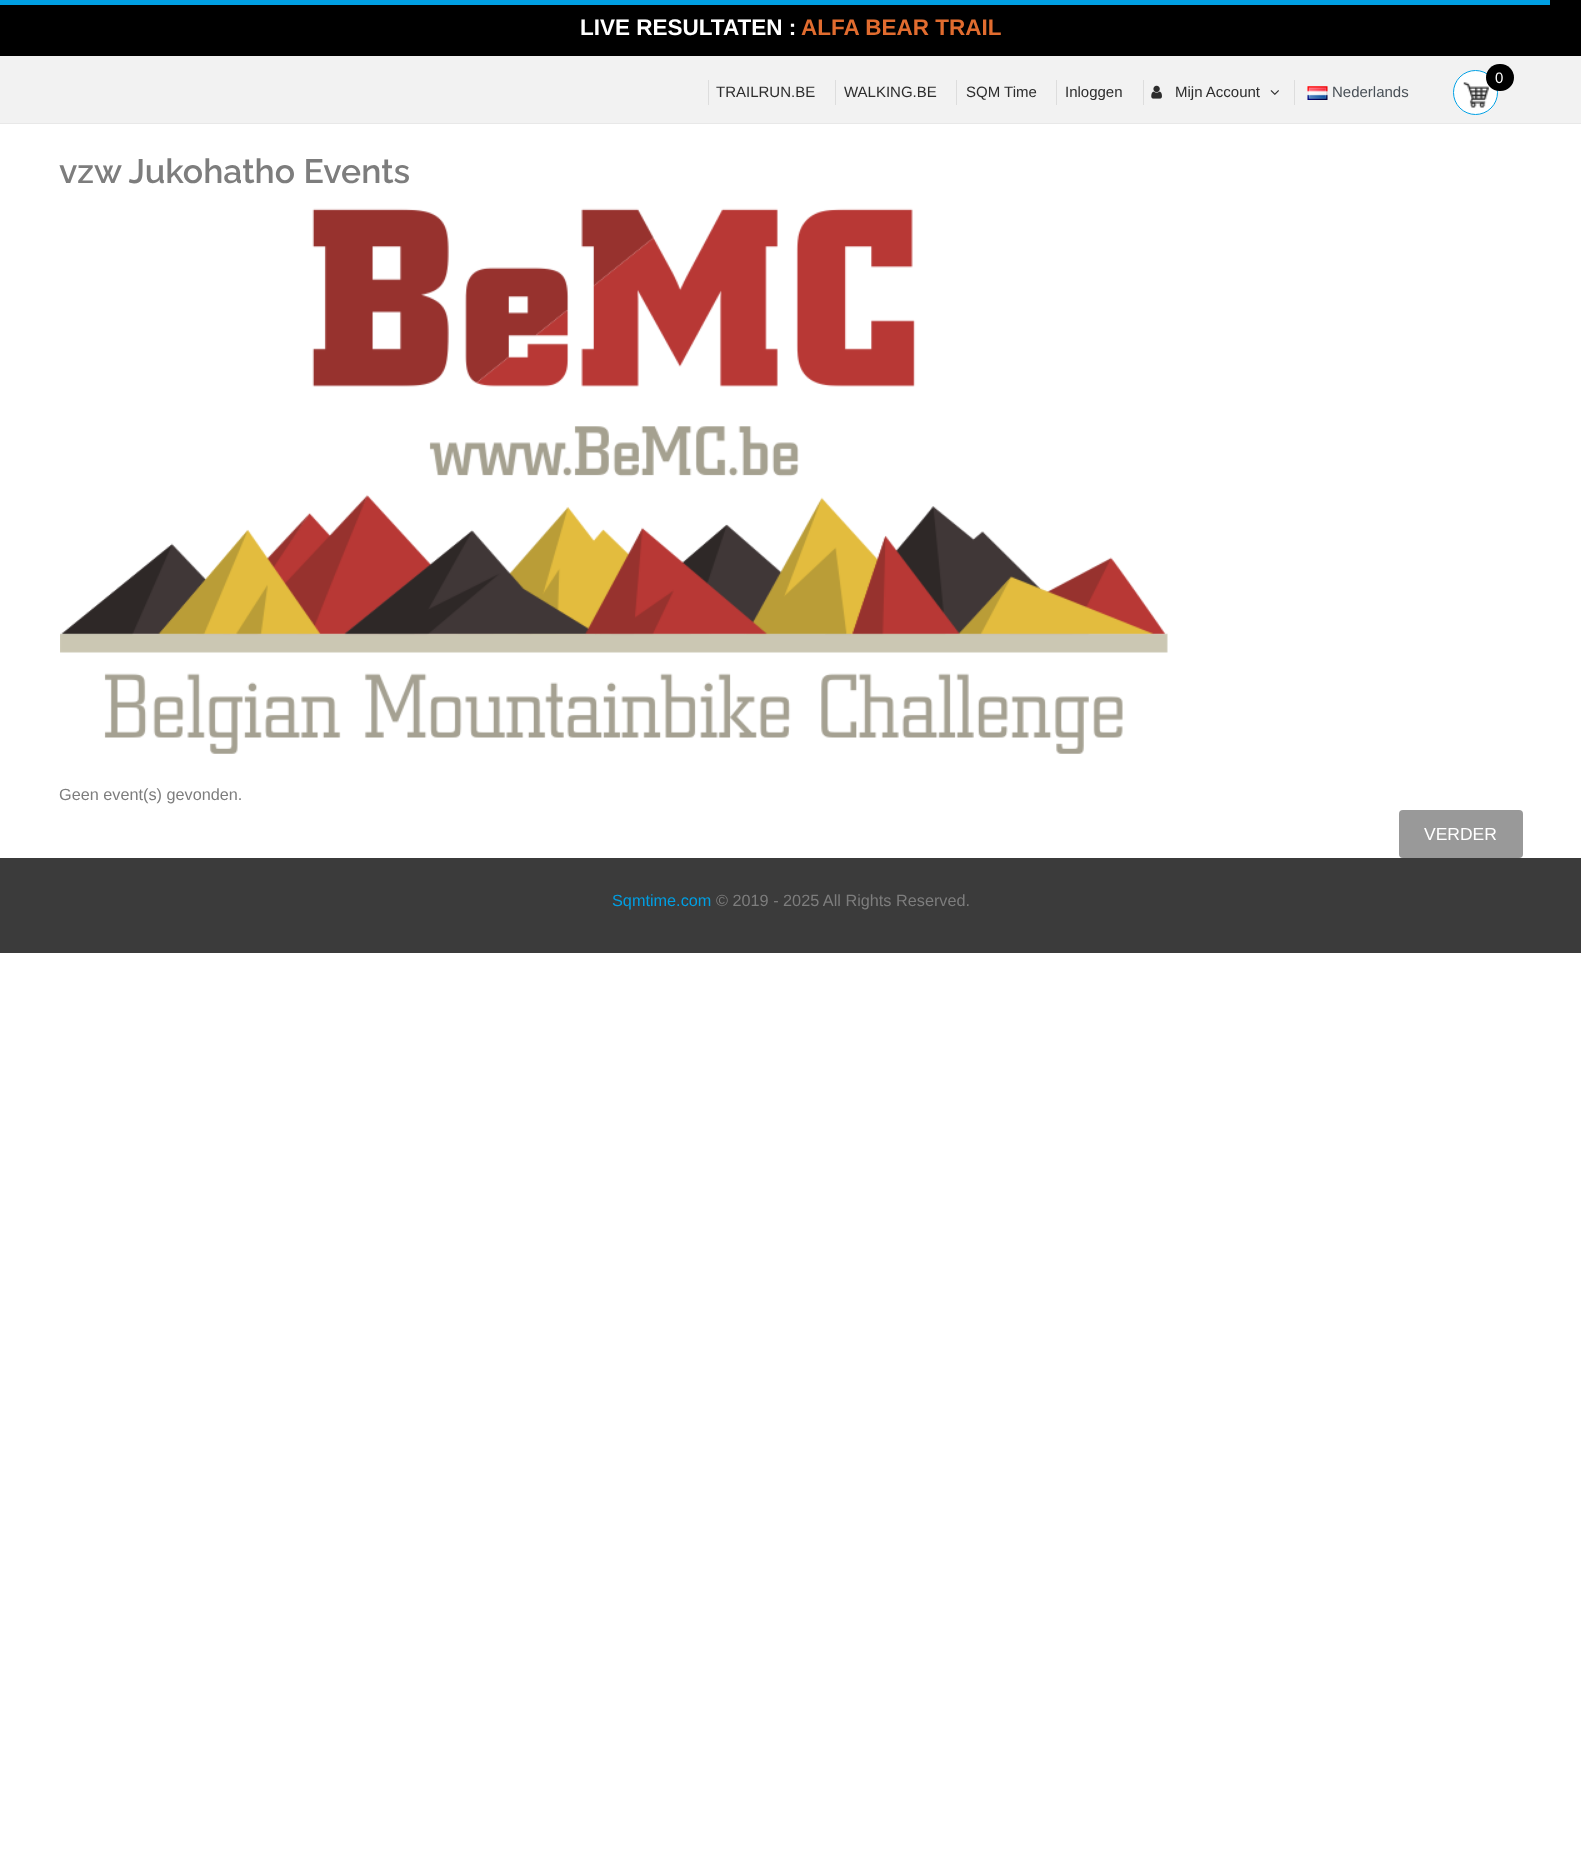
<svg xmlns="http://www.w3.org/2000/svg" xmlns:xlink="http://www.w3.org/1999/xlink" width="1581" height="1858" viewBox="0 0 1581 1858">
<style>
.cls-1{font:bold 22.5px Liberation Sans;fill:#ffffff}
.cls-2{font:bold 22.5px Liberation Sans;fill:#e16c2f}
.cls-3{font:15px Liberation Sans;fill:#ffffff}
.cls-4{font:15px Liberation Sans;fill:#2d2d2d}
.cls-5{font:15px Liberation Sans;fill:#495057}
.cls-6{font:600 33.75px Raleway;fill:#7d7d7d}
.cls-7{font:16.25px Liberation Sans;fill:#7d7d7d}
.cls-8{font:17.5px Liberation Sans;fill:#ffffff}
.cls-9{font:16.25px Liberation Sans;fill:#009fe3}
</style>
<rect width="100%" height="100%" fill="#ffffff"/>
<rect fill="#000000" x="0" y="0" width="1581" height="56"/>
<rect fill="#009fe3" x="0" y="0" width="1550" height="5"/>
<rect fill="#f2f2f2" x="0" y="56" width="1581" height="67"/>
<rect fill="#e8e8e8" x="0" y="123" width="1581" height="1"/>
<circle fill="#ffffff" cx="1475.5" cy="92.5" r="22.5"/>
<image xlink:href="image0.png" x="1463" y="82" width="26" height="26"/>
<circle fill="none" stroke="#009fe3" cx="1475.5" cy="92.5" r="22"/>
<rect fill="#000000" x="1486" y="64" width="28" height="27" rx="13.5"/>
<rect fill="#dddddd" x="708" y="80" width="1" height="25"/>
<rect fill="#dddddd" x="835" y="80" width="1" height="25"/>
<rect fill="#dddddd" x="956" y="80" width="1" height="25"/>
<rect fill="#dddddd" x="1056" y="80" width="1" height="25"/>
<rect fill="#dddddd" x="1143" y="80" width="1" height="25"/>
<image xlink:href="image1.png" x="1151" y="85" width="11" height="14"/>
<image xlink:href="image2.png" x="1270" y="90" width="9" height="5"/>
<rect fill="#dddddd" x="1294" y="80" width="1" height="25"/>
<image xlink:href="image3.png" x="1307" y="86" width="21" height="14"/>
<image xlink:href="image4.png" x="60" y="208" width="1108" height="546"/>
<rect fill="#999999" x="1399" y="810" width="124" height="48" rx="4"/>
<rect fill="#3b3b3b" x="0" y="858" width="1581" height="95"/>
<text class="cls-1" x="580" y="35">LIVE RESULTATEN :</text>
<text class="cls-2" x="801" y="35">ALFA BEAR TRAIL</text>
<text class="cls-3" x="1495" y="83">0</text>
<text class="cls-4" x="716" y="97">TRAILRUN.BE</text>
<text class="cls-4" x="844" y="97">WALKING.BE</text>
<text class="cls-4" x="966" y="97">SQM Time</text>
<text class="cls-4" x="1065" y="97">Inloggen</text>
<text class="cls-4" x="1175" y="97">Mijn Account</text>
<text class="cls-5" x="1332" y="97">Nederlands</text>
<text class="cls-6" x="59" y="183">vzw Jukohatho Events</text>
<text class="cls-7" x="59" y="800">Geen event(s) gevonden.</text>
<text class="cls-8" x="1424" y="840">VERDER</text>
<text class="cls-9" x="612" y="906">Sqmtime.com</text>
<text class="cls-7" x="716" y="906">© 2019 - 2025 All Rights Reserved.</text>
</svg>
